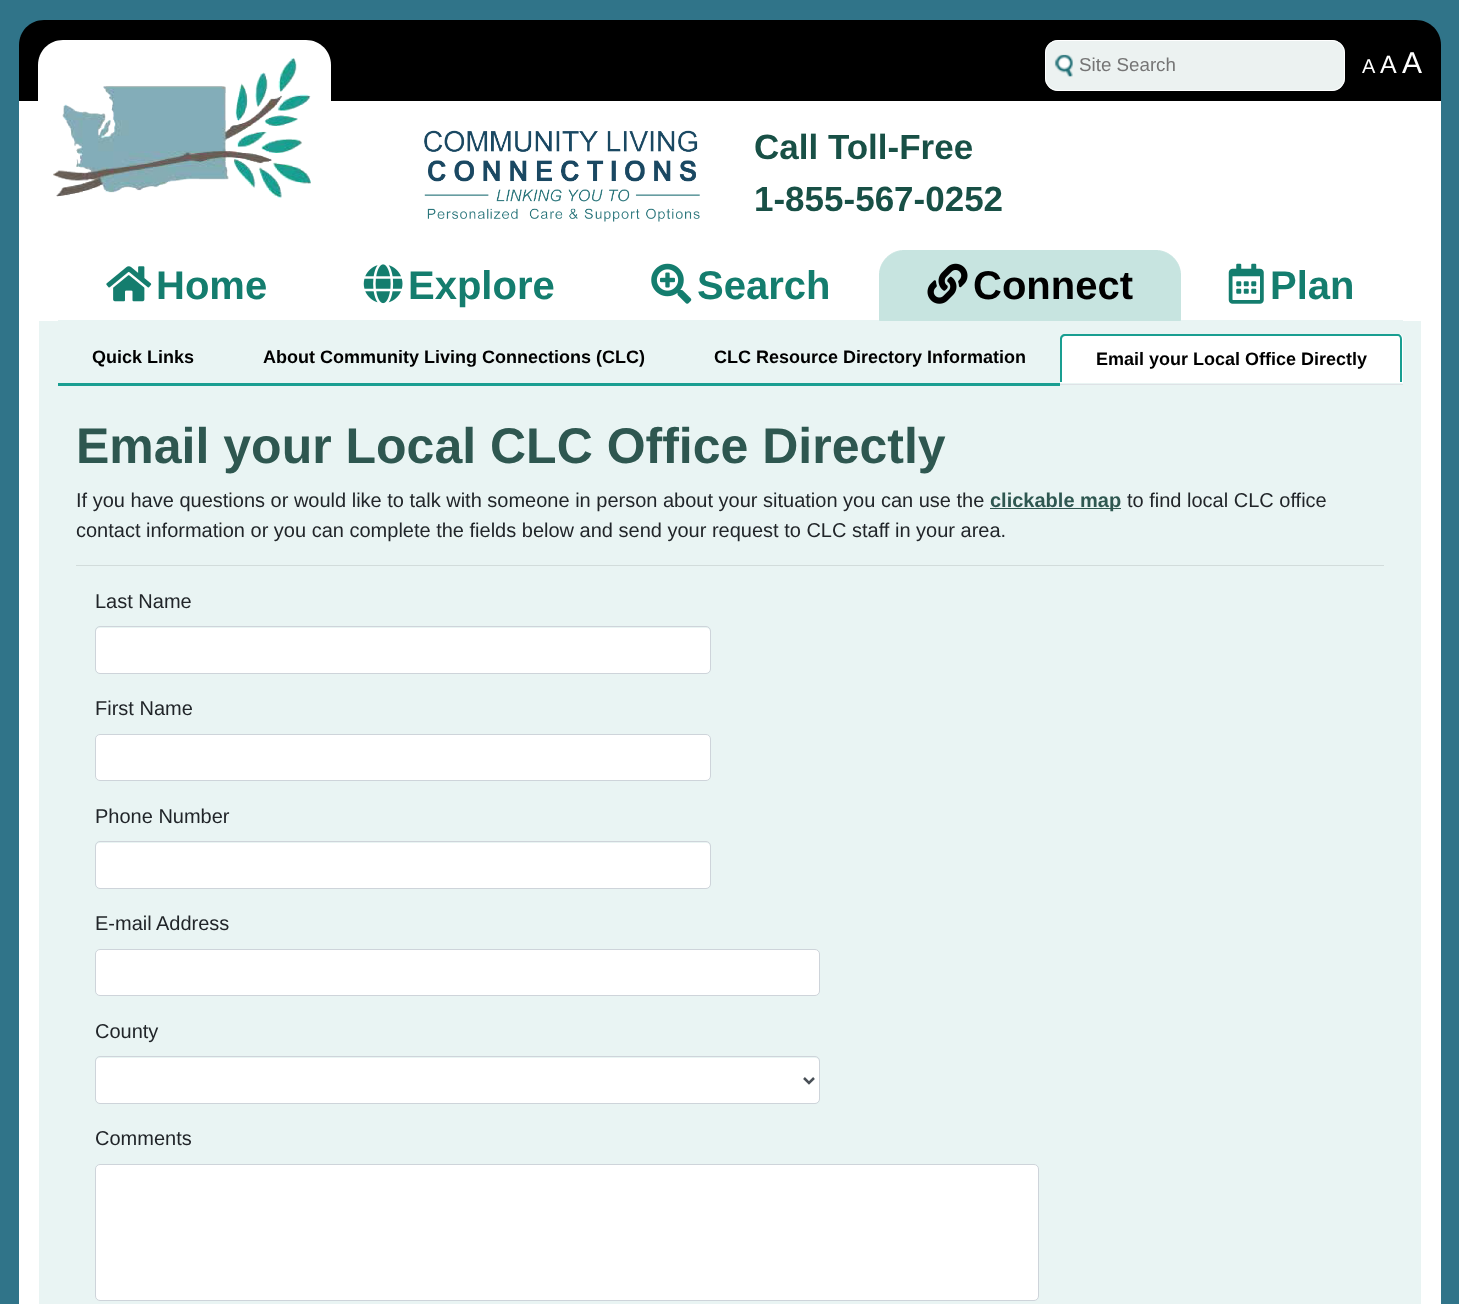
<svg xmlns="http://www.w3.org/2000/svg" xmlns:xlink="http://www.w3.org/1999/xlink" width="1459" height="1304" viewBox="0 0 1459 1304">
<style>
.cls-1{font:18.75px Liberation Sans;fill:#757575}
.cls-2{font:20px Liberation Sans;fill:#ffffff}
.cls-3{font:25px Liberation Sans;fill:#ffffff}
.cls-4{font:30px Liberation Sans;fill:#ffffff}
.cls-5{font:bold 35px Liberation Sans;fill:#185046}
.cls-6{font:bold 40px Liberation Sans;fill:#147d6e}
.cls-7{font:bold 40px Liberation Sans;fill:#000000}
.cls-8{font:bold 18px Liberation Sans;fill:#000000}
.cls-9{font:bold 50px Liberation Sans;fill:#2e5750}
.cls-10{font:20px Liberation Sans;fill:#212529}
.cls-11{font:bold 20px Liberation Sans;fill:#2e5750}
</style>
<rect width="100%" height="100%" fill="#307489"/>
<path fill="#000000" d="M44 20H1416C1430 20 1441 31 1441 45V101H19V45C19 31 30 20 44 20Z"/>
<rect fill="#ffffff" x="19" y="101" width="1422" height="1203"/>
<path fill="#ffffff" d="M63 40H306C320 40 331 51 331 65V224H38V65C38 51 49 40 63 40Z"/>
<image xlink:href="image0.png" x="53" y="58" width="258" height="140"/>
<rect fill="#ecf2f1" x="1045" y="40" width="300" height="51" rx="13"/>
<image xlink:href="image1.png" x="1054" y="54" width="19" height="23"/>
<rect fill="none" stroke="#ffffff" x="1045.5" y="40.5" width="299" height="50" rx="12.5"/>
<image xlink:href="image2.png" x="424" y="130" width="276" height="92"/>
<rect fill="#e9f4f3" x="58" y="320" width="1345" height="1"/>
<image xlink:href="image3.png" x="106" y="266" width="46" height="36"/>
<image xlink:href="image4.png" x="363" y="264" width="40" height="40"/>
<image xlink:href="image5.png" x="651" y="263" width="41" height="41"/>
<path fill="#c7e4e0" stroke="#c7e4e0" d="M904 250.5H1156C1169.5 250.5 1180.5 261.5 1180.5 275V320.5H879.5V275C879.5 261.5 890.5 250.5 904 250.5Z"/>
<image xlink:href="image6.png" x="927" y="263" width="41" height="41"/>
<image xlink:href="image7.png" x="1228" y="263" width="36" height="41"/>
<rect fill="#e9f4f3" x="39" y="321" width="1382" height="983"/>
<rect fill="#dee2e6" x="1060" y="384" width="343" height="1"/>
<rect fill="#199e91" x="58" y="383" width="1002" height="3"/>
<path fill="#ffffff" d="M1065 334H1398C1401 334 1403 336 1403 339V383H1060V339C1060 336 1062 334 1065 334Z"/>
<path fill="#199e91" fill-rule="evenodd" d="M1065 334H1398C1400 334 1402 336 1402 339V382H1060V339C1060 336 1062 334 1065 334ZM1065 336H1398C1399 336 1400 337 1400 339V382H1062V339C1062 337 1064 336 1065 336Z"/>
<rect fill="#2e5750" x="990" y="508" width="131" height="1"/>
<rect fill="#d2dcdb" x="76" y="565" width="1308" height="1"/>
<rect fill="#ffffff" x="96" y="628" width="614" height="45" rx="4"/>
<rect fill="none" stroke="#ced4da" x="95.5" y="626.5" width="615" height="47" rx="4.5"/>
<rect fill="#ffffff" stroke="#ced4da" x="95.5" y="734.5" width="615" height="46" rx="4.5"/>
<rect fill="#ffffff" x="96" y="843" width="614" height="45" rx="4"/>
<rect fill="none" stroke="#ced4da" x="95.5" y="841.5" width="615" height="47" rx="4.5"/>
<rect fill="#ffffff" stroke="#ced4da" x="95.5" y="949.5" width="724" height="46" rx="4.5"/>
<rect fill="#ffffff" x="96" y="1058" width="723" height="45" rx="4"/>
<rect fill="none" stroke="#ced4da" x="95.5" y="1056.5" width="724" height="47" rx="4.5"/>
<path fill="none" stroke="#495057" stroke-width="2.5" d="M804 1078L809 1083L814 1078"/>
<rect fill="#ffffff" stroke="#ced4da" x="95.5" y="1164.5" width="943" height="136" rx="4.5"/>
<text class="cls-1" x="1079" y="71">Site Search</text>
<text class="cls-2" x="1362" y="73">A</text>
<text class="cls-3" x="1380" y="73">A</text>
<text class="cls-4" x="1402" y="73">A</text>
<text class="cls-5"><tspan x="754" y="159">Call Toll-Free</tspan><tspan x="754" y="211">1-855-567-0252</tspan></text>
<text class="cls-6" x="156" y="299">Home</text>
<text class="cls-6" x="408" y="299">Explore</text>
<text class="cls-6" x="697" y="299">Search</text>
<text class="cls-7" x="973" y="299">Connect</text>
<text class="cls-6" x="1270" y="299">Plan</text>
<text class="cls-8" x="92" y="363">Quick Links</text>
<text class="cls-8" x="263" y="363">About Community Living Connections (CLC)</text>
<text class="cls-8" x="714" y="363">CLC Resource Directory Information</text>
<text class="cls-8" x="1096" y="365">Email your Local Office Directly</text>
<text class="cls-9" x="76" y="463">Email your Local CLC Office Directly</text>
<text class="cls-10" x="76" y="507">If you have questions or would like to talk with someone in person about your situation you can use the</text>
<text class="cls-11" x="990" y="507">clickable map</text>
<text class="cls-10" x="1127" y="507">to find local CLC office</text>
<text class="cls-10" x="76" y="537">contact information or you can complete the fields below and send your request to CLC staff in your area.</text>
<text class="cls-10" x="95" y="608">Last Name</text>
<text class="cls-10" x="95" y="715">First Name</text>
<text class="cls-10" x="95" y="823">Phone Number</text>
<text class="cls-10" x="95" y="930">E-mail</text>
<text class="cls-10" x="156" y="930">Address</text>
<text class="cls-10" x="95" y="1038">County</text>
<text class="cls-10" x="95" y="1145">Comments</text>
</svg>
